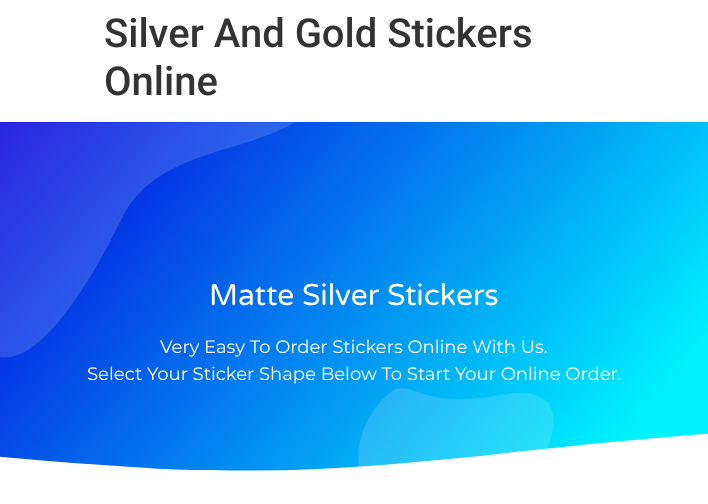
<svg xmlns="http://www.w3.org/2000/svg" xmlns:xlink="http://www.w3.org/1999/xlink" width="708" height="504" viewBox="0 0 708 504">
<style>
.cls-1{font:500 40px Roboto;fill:#333333}
.cls-2{font:30px Varela Round;fill:#ffffff}
.cls-3{font:18px Montserrat;fill:#ffffff}
</style>
<defs>
<linearGradient id="g1" gradientUnits="userSpaceOnUse" x1="60" y1="51" x2="648" y2="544"><stop offset="0" stop-color="#0700dd"/><stop offset="0.89" stop-color="#00f2ff"/></linearGradient>
</defs>
<rect width="100%" height="100%" fill="#ffffff"/>
<rect fill="url(#g1)" x="0" y="122" width="708" height="349"/>
<image xlink:href="image0.png" x="0" y="122" width="554" height="345"/>
<path fill="#ffffff" d="M210 470C367 475 523 448 679 436C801 426 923 422 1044 425C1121 427 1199 431 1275 439V474H-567V458C-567 458-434 442-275 443C-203 444-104 447-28 454C11 458 68 463 118 466C169 470 191 470 210 470Z"/>
<text class="cls-1"><tspan x="104" y="47">Silver And Gold Stickers</tspan><tspan x="104" y="95">Online</tspan></text>
<text class="cls-2" x="209" y="305">Matte Silver Stickers</text>
<text class="cls-3" x="160" y="353">Very Easy To Order Stickers Online With Us.</text>
<text class="cls-3" x="87" y="380">Select Your Sticker Shape Below To Start Your Online Order.</text>
</svg>
